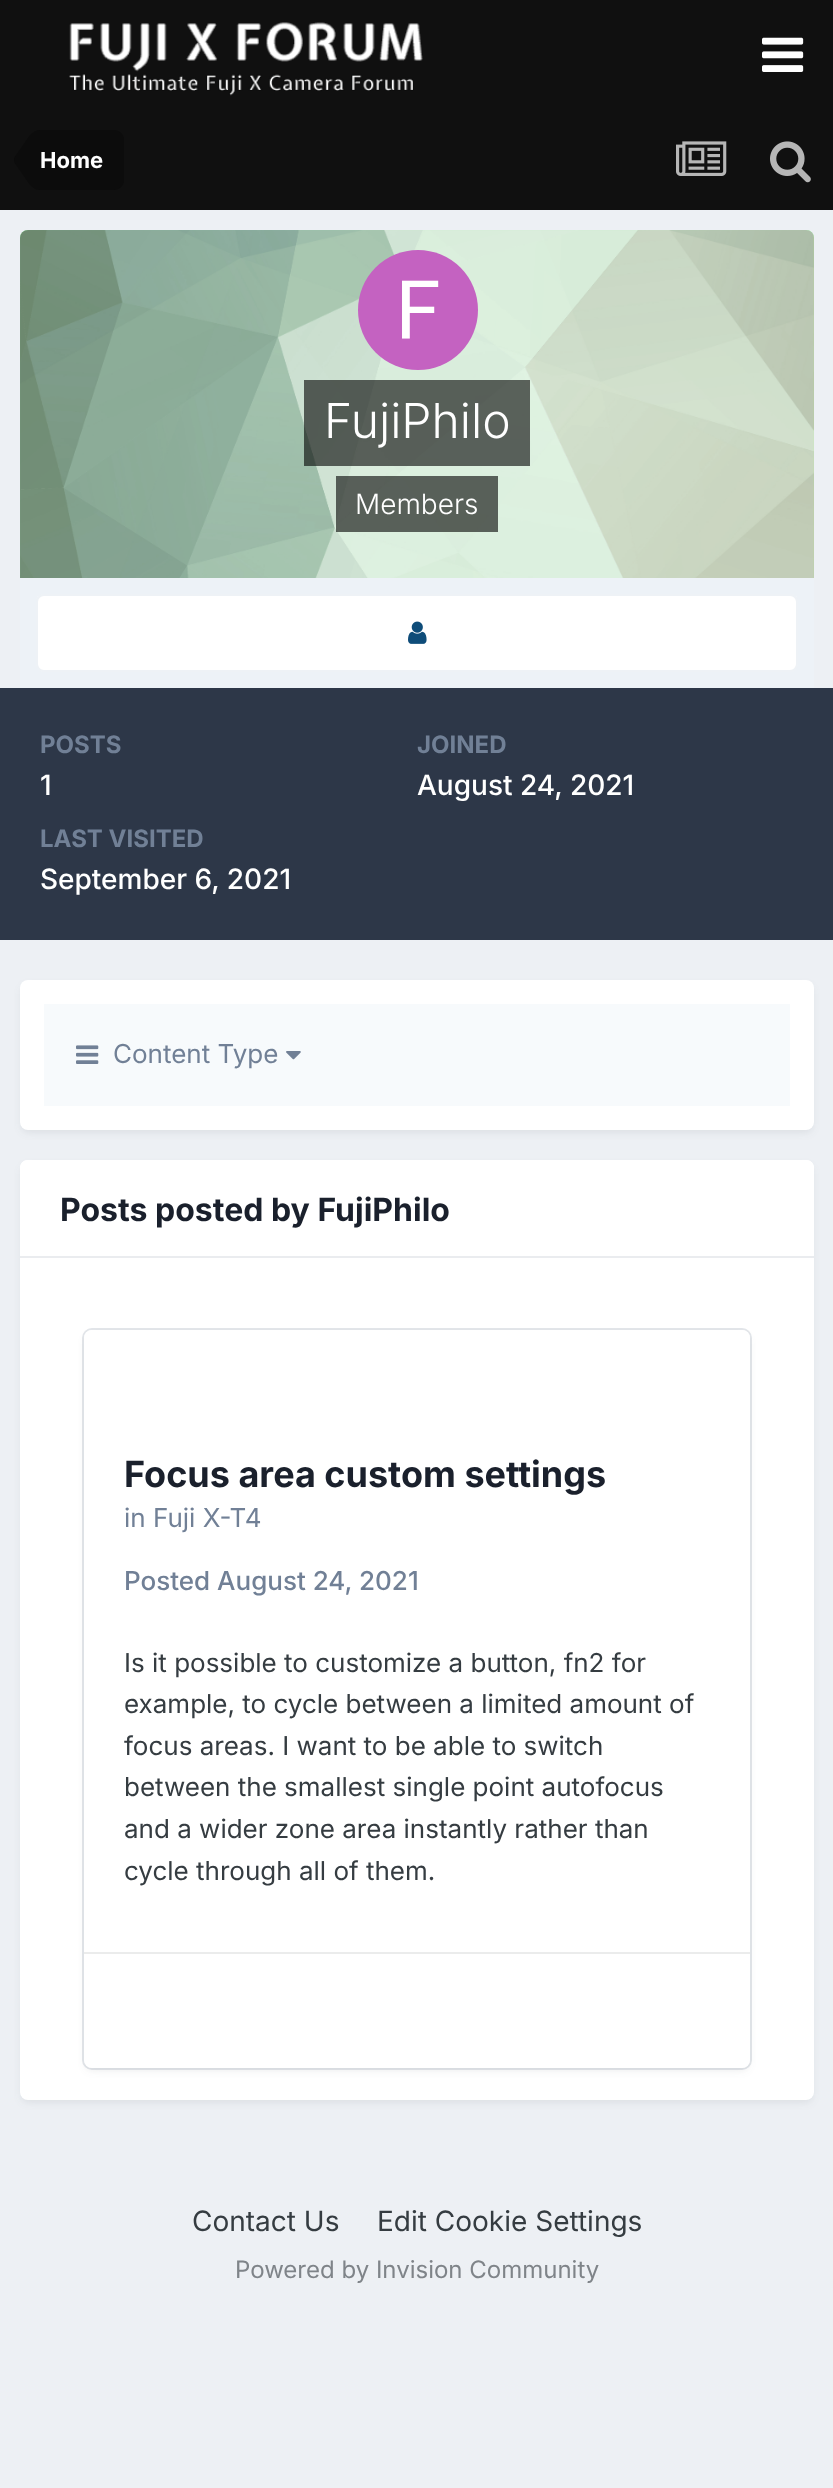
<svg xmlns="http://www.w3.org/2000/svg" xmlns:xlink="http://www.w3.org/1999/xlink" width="833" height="2488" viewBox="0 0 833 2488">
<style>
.cls-1{font:bold 22px Inter;fill:#ffffff}
.cls-2{font:300 48px Inter;fill:#ffffff}
.cls-3{font:300 28px Inter;fill:#ffffff}
.cls-4{font:bold 24px Inter;fill:#718096}
.cls-5{font:500 28px Inter;fill:#ffffff}
.cls-6{font:26px Inter;fill:#718096}
.cls-7{font:bold 32px Inter;fill:#1a202c}
.cls-8{font:bold 36px Inter;fill:#1a202c}
.cls-9{font:500 26px Inter;fill:#718096}
.cls-10{font:26px Inter;fill:#353c41}
.cls-11{font:28px Inter;fill:#353c41}
.cls-12{font:24px Inter;fill:#7f8489}
</style>
<rect width="100%" height="100%" fill="#edf0f4"/>
<rect fill="#101010" x="0" y="0" width="833" height="210"/>
<image xlink:href="image0.png" x="69" y="22" width="354" height="74"/>
<image xlink:href="image1.png" x="762" y="37" width="42" height="35"/>
<path fill="#0c0c0c" d="M40 130H114C119.5 130 124 134.5 124 140V180C124 185.5 119.5 190 114 190H40Z"/>
<path fill="#0c0c0c" d="M40 160V190C36.5 190 33 188 30 185L15 163.5C14.5 162.5 14 161.5 14 160ZM40 160H14C14 158.5 14.5 157.5 15 156.5L30 135C33 132 36.5 130 40 130Z"/>
<image xlink:href="image2.png" x="676" y="141" width="51" height="35"/>
<image xlink:href="image3.png" x="770" y="141" width="41" height="42"/>
<path fill="#99ffa3" d="M28 230H806C810.5 230 814 233.5 814 238V578H20V238C20 233.5 23.5 230 28 230Z"/>
<image xlink:href="image4.png" x="20" y="230" width="794" height="348"/>
<image xlink:href="image5.png" x="358" y="250" width="120" height="120"/>
<rect fill="#000000" fill-opacity="0.6" x="304" y="380" width="226" height="86"/>
<rect fill="#000000" fill-opacity="0.6" x="336" y="476" width="162" height="56"/>
<rect fill="#edf2f7" x="20" y="578" width="794" height="110"/>
<rect fill="#ffffff" x="36" y="594" width="762" height="78" rx="8"/>
<rect fill="none" stroke="#0e4c79" stroke-opacity="0.07" stroke-width="2" x="37" y="595" width="760" height="76" rx="7"/>
<image xlink:href="image6.png" x="408" y="621" width="19" height="23"/>
<rect fill="#2d3748" x="0" y="688" width="833" height="252"/>
<rect fill="#2d3748" fill-opacity="0.1" filter="blur(4px)" x="22" y="986" width="790" height="146" rx="6"/>
<rect fill="#ffffff" x="20" y="980" width="794" height="150" rx="8"/>
<rect fill="#f7fafc" x="44" y="1004" width="746" height="102"/>
<image xlink:href="image7.png" x="76" y="1045" width="23" height="19"/>
<image xlink:href="image8.png" x="286" y="1051" width="15" height="9"/>
<rect fill="#2d3748" fill-opacity="0.1" filter="blur(4px)" x="22" y="1166" width="790" height="936" rx="6"/>
<rect fill="#ffffff" x="20" y="1160" width="794" height="940" rx="8"/>
<path fill="#ffffff" d="M28 1160H806C810.5 1160 814 1163.5 814 1168V1258H20V1168C20 1163.5 23.5 1160 28 1160Z"/>
<rect fill="#eaecef" x="20" y="1256" width="794" height="2"/>
<rect fill="#2d3748" fill-opacity="0.1" filter="blur(4px)" x="86" y="1336" width="662" height="734" rx="6"/>
<rect fill="none" stroke="#718096" stroke-opacity="0.2" stroke-width="2" x="83" y="1329" width="668" height="740" rx="9"/>
<rect fill="#ffffff" x="84" y="1330" width="666" height="738" rx="8"/>
<rect fill="#ebecec" x="84" y="1952" width="666" height="2"/>
<text class="cls-1" x="40" y="168">Home</text>
<text class="cls-2" x="324" y="438">FujiPhilo</text>
<text class="cls-3" x="355" y="514">Members</text>
<text class="cls-4" x="40" y="753">POSTS</text>
<text class="cls-5" x="40" y="795">1</text>
<text class="cls-4" x="417" y="753">JOINED</text>
<text class="cls-5" x="417" y="795">August 24, 2021</text>
<text class="cls-4" x="40" y="847">LAST VISITED</text>
<text class="cls-5" x="40" y="889">September 6, 2021</text>
<text class="cls-6" x="113" y="1063">Content Type</text>
<text class="cls-7" x="60" y="1221">Posts posted by FujiPhilo</text>
<text class="cls-8" x="124" y="1487">Focus area custom settings</text>
<text class="cls-6" x="124" y="1527">in Fuji X-T4</text>
<text class="cls-9" x="124" y="1590">Posted August 24, 2021</text>
<text class="cls-10"><tspan x="124" y="1672">Is it possible to customize a button, fn2 for</tspan><tspan x="124" y="1713">example, to cycle between a limited amount of</tspan><tspan x="124" y="1755">focus areas. I want to be able to switch</tspan><tspan x="124" y="1796">between the smallest single point autofocus</tspan><tspan x="124" y="1838">and a wider zone area instantly rather than</tspan><tspan x="124" y="1880">cycle through all of them.</tspan></text>
<text class="cls-11" x="192" y="2231">Contact Us</text>
<text class="cls-11" x="377" y="2231">Edit Cookie Settings</text>
<text class="cls-12" x="235" y="2278">Powered by Invision Community</text>
</svg>
